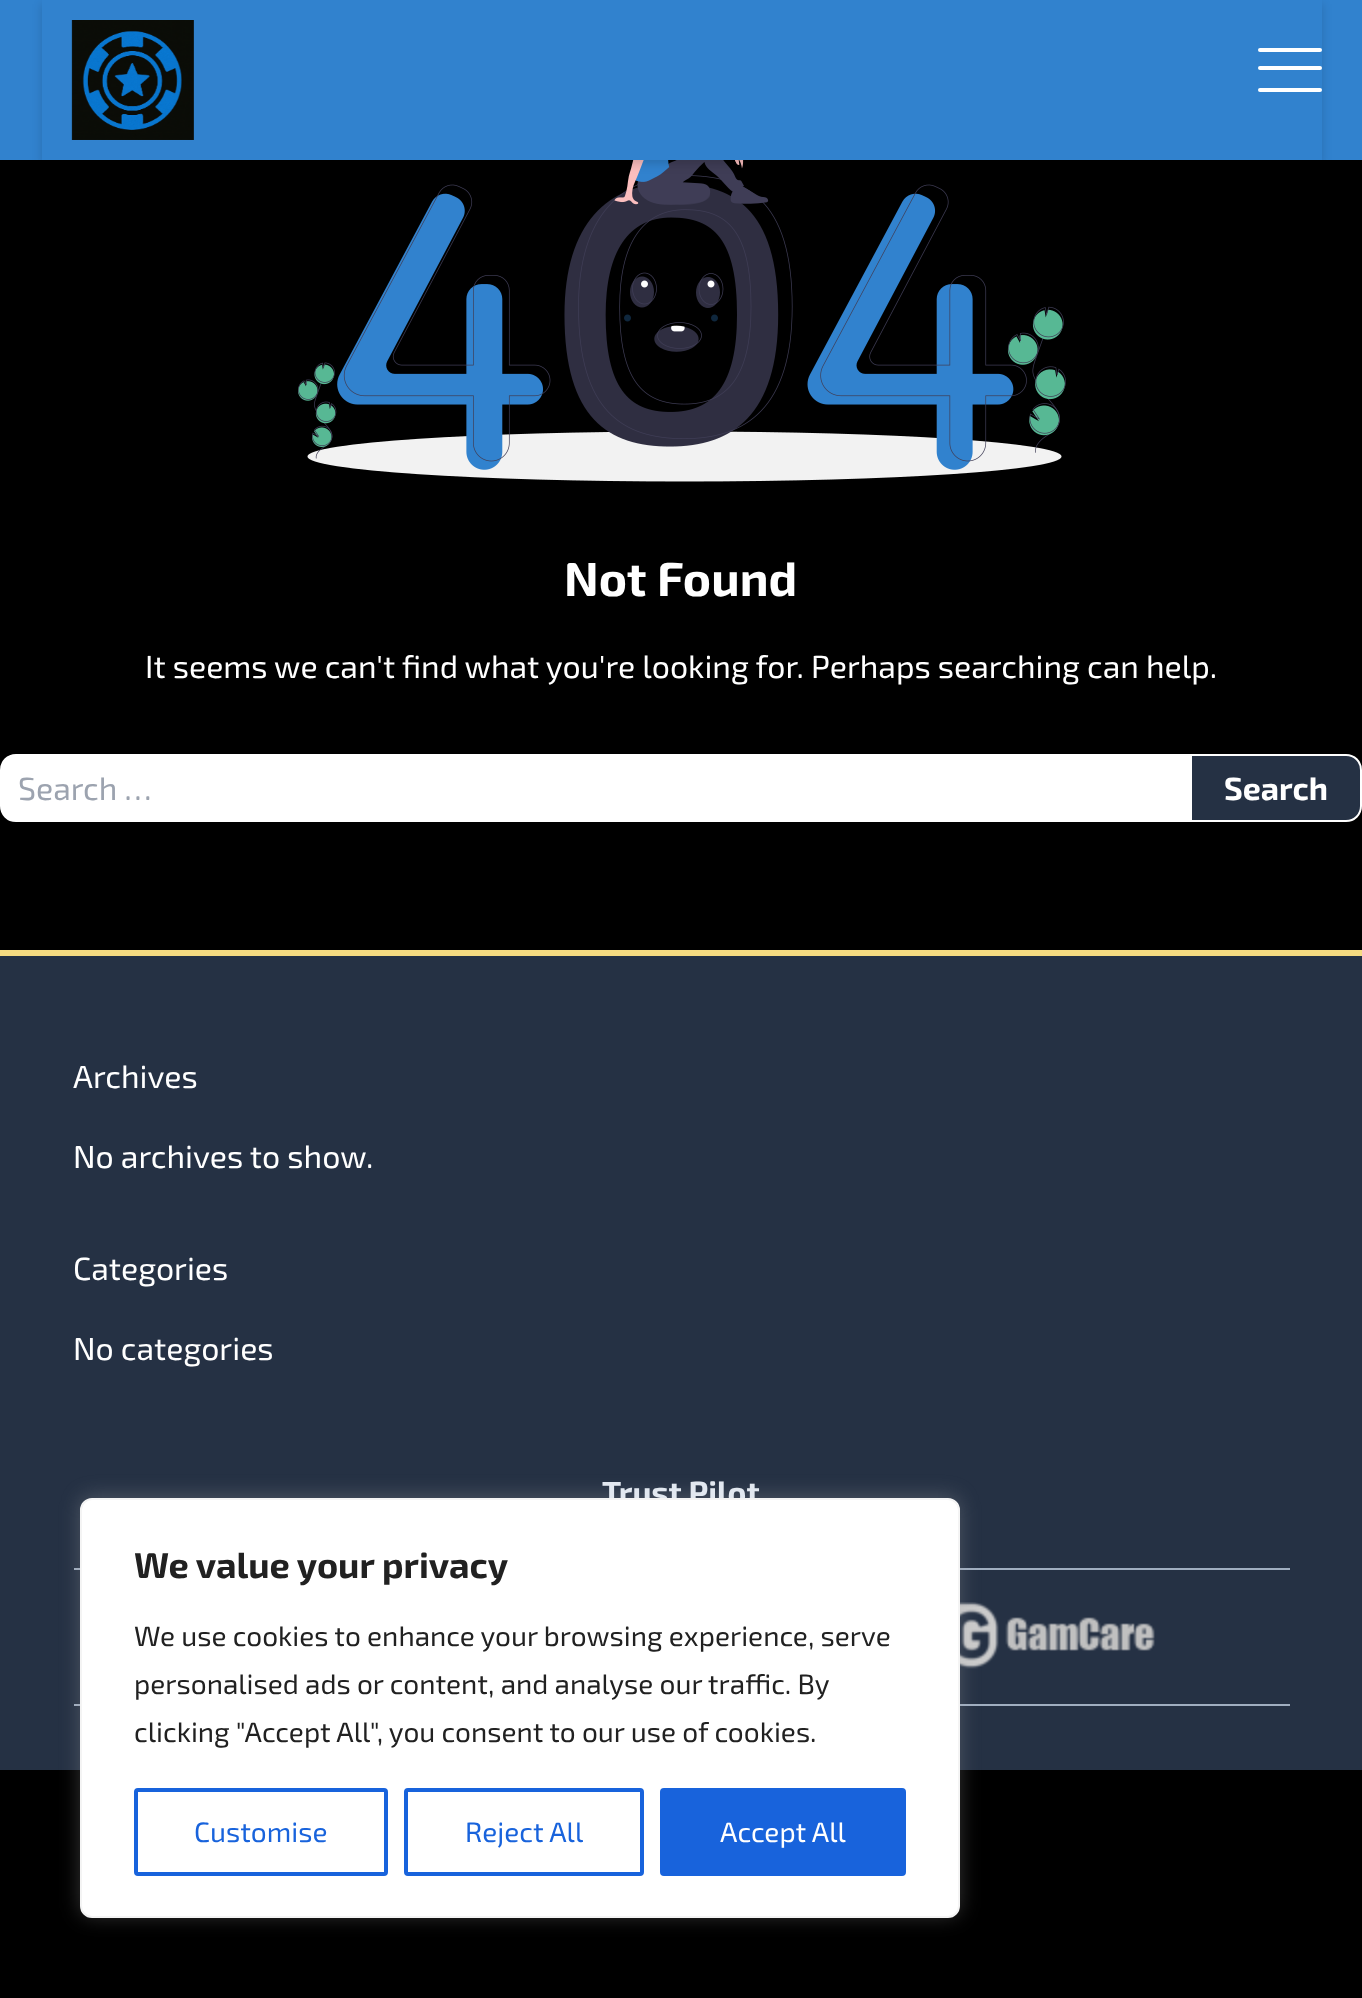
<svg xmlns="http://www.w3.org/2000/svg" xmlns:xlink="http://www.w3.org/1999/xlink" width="1362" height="1998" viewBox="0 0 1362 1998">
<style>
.cls-1{font:bold 48px 'Exo 2';fill:#ffffff}
.cls-2{font:32px 'Exo 2';fill:#ffffff}
.cls-3{font:32px 'Exo 2';fill:#9ca3af}
.cls-4{font:bold 32px 'Exo 2';fill:#ffffff}
.cls-5{font:bold 32px 'Exo 2';fill:#e2e8f0}
.cls-6{font:bold 36px 'Exo 2';fill:#212121}
.cls-7{font:28px 'Exo 2';fill:#212121}
.cls-8{font:28px 'Exo 2';fill:#1863dc}
.cls-9{font:28px 'Exo 2';fill:#ffffff}
</style>
<defs>
<clipPath id="clip1"><path d="M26 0H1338V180H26ZM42 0H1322V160H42Z" clip-rule="evenodd"/></clipPath>
</defs>
<rect width="100%" height="100%" fill="#000000"/>
<rect fill="#3182ce" x="0" y="0" width="1362" height="160"/>
<image xlink:href="image1.png" x="298" y="160" width="768" height="322"/>
<g clip-path="url(#clip1)">
<rect fill="#000000" fill-opacity="0.15" filter="blur(5px)" x="42" y="4" width="1280" height="160"/>
</g>
<image xlink:href="image0.png" x="71" y="20" width="123" height="120"/>
<rect fill="#ffffff" x="1258" y="48" width="64" height="4" rx="2"/>
<rect fill="#ffffff" x="1258" y="66" width="64" height="4" rx="2"/>
<rect fill="#ffffff" x="1258" y="88" width="64" height="4" rx="2"/>
<path fill="#ffffff" stroke="#ffffff" stroke-width="2" d="M16 755H1189V821H16C7.5 821 1 814.5 1 806V770C1 761.5 7.5 755 16 755Z"/>
<path fill="#253144" stroke="#ffffff" stroke-width="2" d="M1191 755H1346C1354.5 755 1361 761.5 1361 770V806C1361 814.5 1354.5 821 1346 821H1191Z"/>
<rect fill="#253144" x="0" y="956" width="1362" height="814"/>
<rect fill="#f5db81" x="0" y="950" width="1362" height="6"/>
<rect fill="#a0aec0" x="74" y="1568" width="1216" height="2"/>
<rect fill="#a0aec0" x="74" y="1704" width="1216" height="2"/>
<image xlink:href="image2.png" x="960" y="1602" width="195" height="67"/>
<rect fill="#acabab" fill-opacity="0.3" filter="blur(10px)" x="80" y="1496" width="880" height="420" rx="12"/>
<text class="cls-1" x="564" y="596">Not Found</text>
<text class="cls-2" x="145" y="678">It seems we can't find what you're looking for. Perhaps searching can help.</text>
<text class="cls-3" x="18" y="800">Search …</text>
<text class="cls-4" x="1224" y="800">Search</text>
<text class="cls-2" x="73" y="1088">Archives</text>
<text class="cls-2" x="73" y="1168">No archives to show.</text>
<text class="cls-2" x="73" y="1280">Categories</text>
<text class="cls-2" x="73" y="1360">No categories</text>
<text class="cls-5" x="602" y="1504">Trust Pilot</text>
<rect fill="#ffffff" stroke="#f4f4f4" stroke-width="2" x="81" y="1499" width="878" height="418" rx="11"/>
<text class="cls-6" x="134" y="1578">We value your privacy</text>
<text class="cls-7"><tspan x="134" y="1646">We use cookies to enhance your browsing experience, serve</tspan><tspan x="134" y="1694">personalised ads or content, and analyse our traffic. By</tspan><tspan x="134" y="1742">clicking "Accept All", you consent to our use of cookies.</tspan></text>
<rect fill="none" stroke="#1863dc" stroke-width="4" x="136" y="1790" width="250" height="84" rx="2"/>
<text class="cls-8" x="194" y="1842">Customise</text>
<rect fill="none" stroke="#1863dc" stroke-width="4" x="406" y="1790" width="236" height="84" rx="2"/>
<text class="cls-8" x="465" y="1842">Reject All</text>
<rect fill="#1863dc" stroke="#1863dc" stroke-width="4" x="662" y="1790" width="242" height="84" rx="2"/>
<text class="cls-9" x="720" y="1842">Accept All</text>
</svg>
